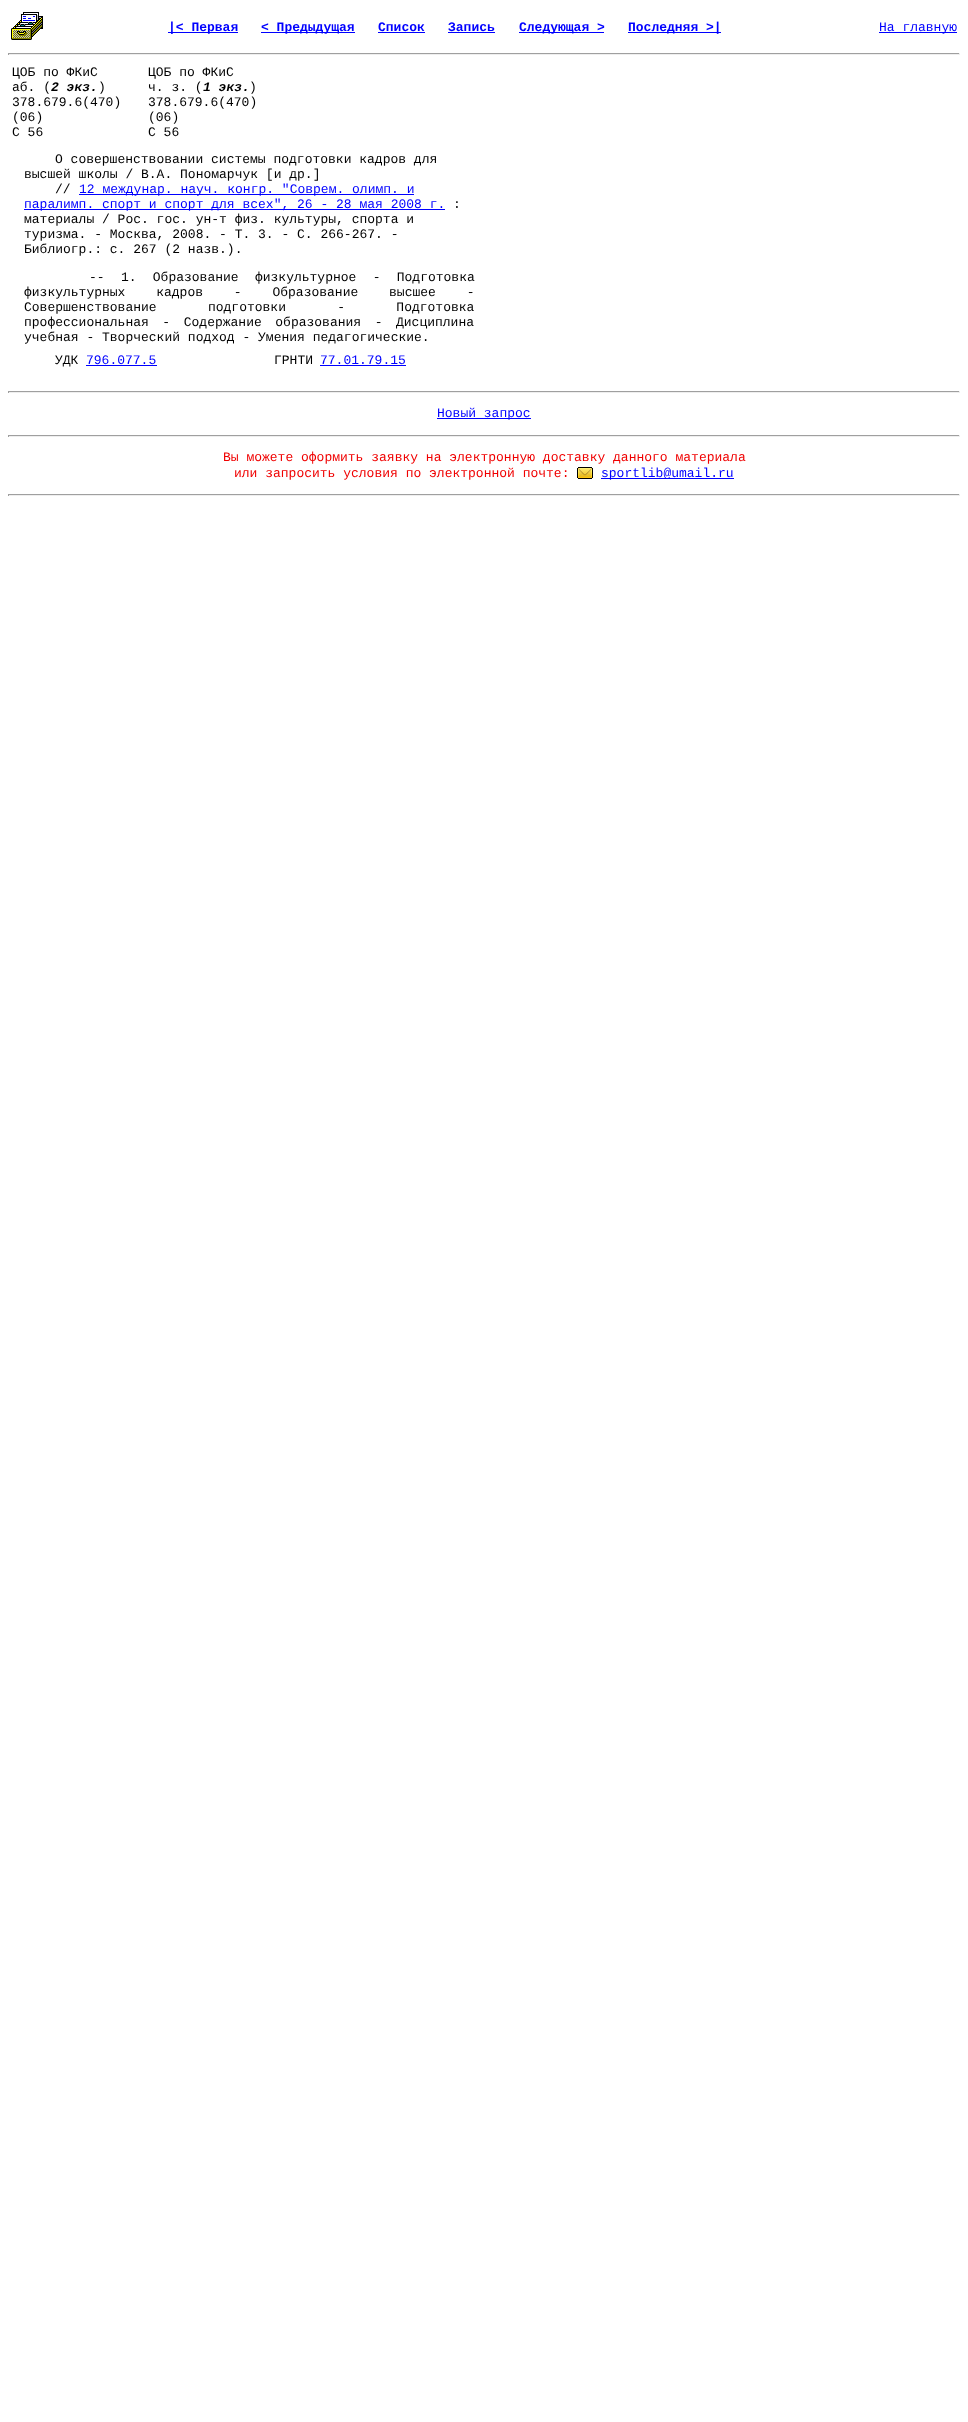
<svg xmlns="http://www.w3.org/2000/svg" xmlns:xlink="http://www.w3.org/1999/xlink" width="968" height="2422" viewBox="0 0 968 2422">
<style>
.cls-1{font:bold 13px Liberation Mono;fill:#0000ff}
.cls-2{font:13px Liberation Mono;fill:#0000ff}
.cls-3{font:13px Liberation Mono;fill:#000000}
.cls-4{font:italic bold 13px Liberation Mono;fill:#000000}
.cls-5{font:13px Liberation Mono;fill:#f00000}
</style>
<rect width="100%" height="100%" fill="#ffffff"/>
<image xlink:href="image0.png" x="11" y="12" width="32" height="28"/>
<rect fill="#0000ff" x="168" y="32" width="70" height="1"/>
<rect fill="#0000ff" x="261" y="32" width="94" height="1"/>
<rect fill="#0000ff" x="378" y="32" width="47" height="1"/>
<rect fill="#0000ff" x="448" y="32" width="47" height="1"/>
<rect fill="#0000ff" x="519" y="32" width="85" height="1"/>
<rect fill="#0000ff" x="628" y="32" width="93" height="1"/>
<rect fill="#0000ff" x="879" y="32" width="78" height="1"/>
<rect fill="#9f9f9f" x="8" y="53" width="952" height="1"/>
<rect fill="#eeeeee" x="959" y="53" width="1" height="2"/>
<rect fill="#eeeeee" x="8" y="54" width="952" height="1"/>
<rect fill="#9f9f9f" x="8" y="53" width="1" height="2"/>
<rect fill="#0000ff" x="79" y="194" width="335" height="1"/>
<rect fill="#0000ff" x="24" y="209" width="421" height="1"/>
<rect fill="#0000ff" x="86" y="365" width="71" height="1"/>
<rect fill="#0000ff" x="320" y="365" width="86" height="1"/>
<rect fill="#9f9f9f" x="8" y="391" width="952" height="1"/>
<rect fill="#eeeeee" x="959" y="391" width="1" height="2"/>
<rect fill="#eeeeee" x="8" y="392" width="952" height="1"/>
<rect fill="#9f9f9f" x="8" y="391" width="1" height="2"/>
<rect fill="#0000ff" x="437" y="418" width="94" height="1"/>
<rect fill="#9f9f9f" x="8" y="435" width="952" height="1"/>
<rect fill="#eeeeee" x="959" y="435" width="1" height="2"/>
<rect fill="#eeeeee" x="8" y="436" width="952" height="1"/>
<rect fill="#9f9f9f" x="8" y="435" width="1" height="2"/>
<image xlink:href="image1.png" x="577" y="467" width="16" height="12"/>
<rect fill="#0000ff" x="601" y="478" width="133" height="1"/>
<rect fill="#9f9f9f" x="8" y="494" width="952" height="1"/>
<rect fill="#eeeeee" x="959" y="494" width="1" height="2"/>
<rect fill="#eeeeee" x="8" y="495" width="952" height="1"/>
<rect fill="#9f9f9f" x="8" y="494" width="1" height="2"/>
<text class="cls-1" x="168" y="31">|&lt; Первая</text>
<text class="cls-1" x="261" y="31">&lt; Предыдущая</text>
<text class="cls-1" x="378" y="31">Список</text>
<text class="cls-1" x="448" y="31">Запись</text>
<text class="cls-1" x="519" y="31">Следующая &gt;</text>
<text class="cls-1" x="628" y="31">Последняя &gt;|</text>
<text class="cls-2" x="879" y="31">На главную</text>
<text class="cls-3"><tspan x="12" y="76">ЦОБ по ФКиС</tspan><tspan x="12" y="91">аб. (</tspan></text>
<text class="cls-4" x="51" y="91">2 экз.</text>
<text class="cls-3" x="98" y="91">)</text>
<text class="cls-3"><tspan x="12" y="106">378.679.6(470)</tspan><tspan x="12" y="121">(06)</tspan><tspan x="12" y="136">С 56</tspan></text>
<text class="cls-3"><tspan x="148" y="76">ЦОБ по ФКиС</tspan><tspan x="148" y="91">ч. з. (</tspan></text>
<text class="cls-4" x="203" y="91">1 экз.</text>
<text class="cls-3" x="249" y="91">)</text>
<text class="cls-3"><tspan x="148" y="106">378.679.6(470)</tspan><tspan x="148" y="121">(06)</tspan><tspan x="148" y="136">С 56</tspan></text>
<text class="cls-3" x="55" y="163">О совершенствовании системы подготовки кадров для</text>
<text class="cls-3" x="24" y="178">высшей школы / В.А. Пономарчук [и др.]</text>
<text class="cls-3" x="55" y="193">//</text>
<text class="cls-2" x="79" y="193">12 междунар. науч. конгр. "Соврем. олимп. и</text>
<text class="cls-2" x="24" y="208">паралимп. спорт и спорт для всех", 26 - 28 мая 2008 г.</text>
<text class="cls-3" x="453" y="208">:</text>
<text class="cls-3"><tspan x="24" y="223">материалы / Рос. гос. ун-т физ. культуры, спорта и</tspan><tspan x="24" y="238">туризма. - Москва, 2008. - Т. 3. - С. 266-267. -</tspan><tspan x="24" y="253">Библиогр.: с. 267 (2 назв.).</tspan></text>
<text class="cls-3" x="89" y="281" word-spacing="8.5">-- 1. Образование физкультурное - Подготовка</text>
<text class="cls-3"><tspan x="24" y="296" word-spacing="23">физкультурных кадров - Образование высшее -</tspan><tspan x="24" y="311" word-spacing="43.5">Совершенствование подготовки - Подготовка</tspan><tspan x="24" y="326" word-spacing="5.75">профессиональная - Содержание образования - Дисциплина</tspan><tspan x="24" y="341">учебная - Творческий подход - Умения педагогические.</tspan></text>
<text class="cls-3" x="55" y="364">УДК</text>
<text class="cls-2" x="86" y="364">796.077.5</text>
<text class="cls-3" x="274" y="364">ГРНТИ</text>
<text class="cls-2" x="320" y="364">77.01.79.15</text>
<text class="cls-2" x="437" y="417">Новый запрос</text>
<text class="cls-5" x="223" y="461">Вы можете оформить заявку на электронную доставку данного материала</text>
<text class="cls-5" x="234" y="477">или запросить условия по электронной почте:</text>
<text class="cls-2" x="601" y="477">sportlib@umail.ru</text>
</svg>
